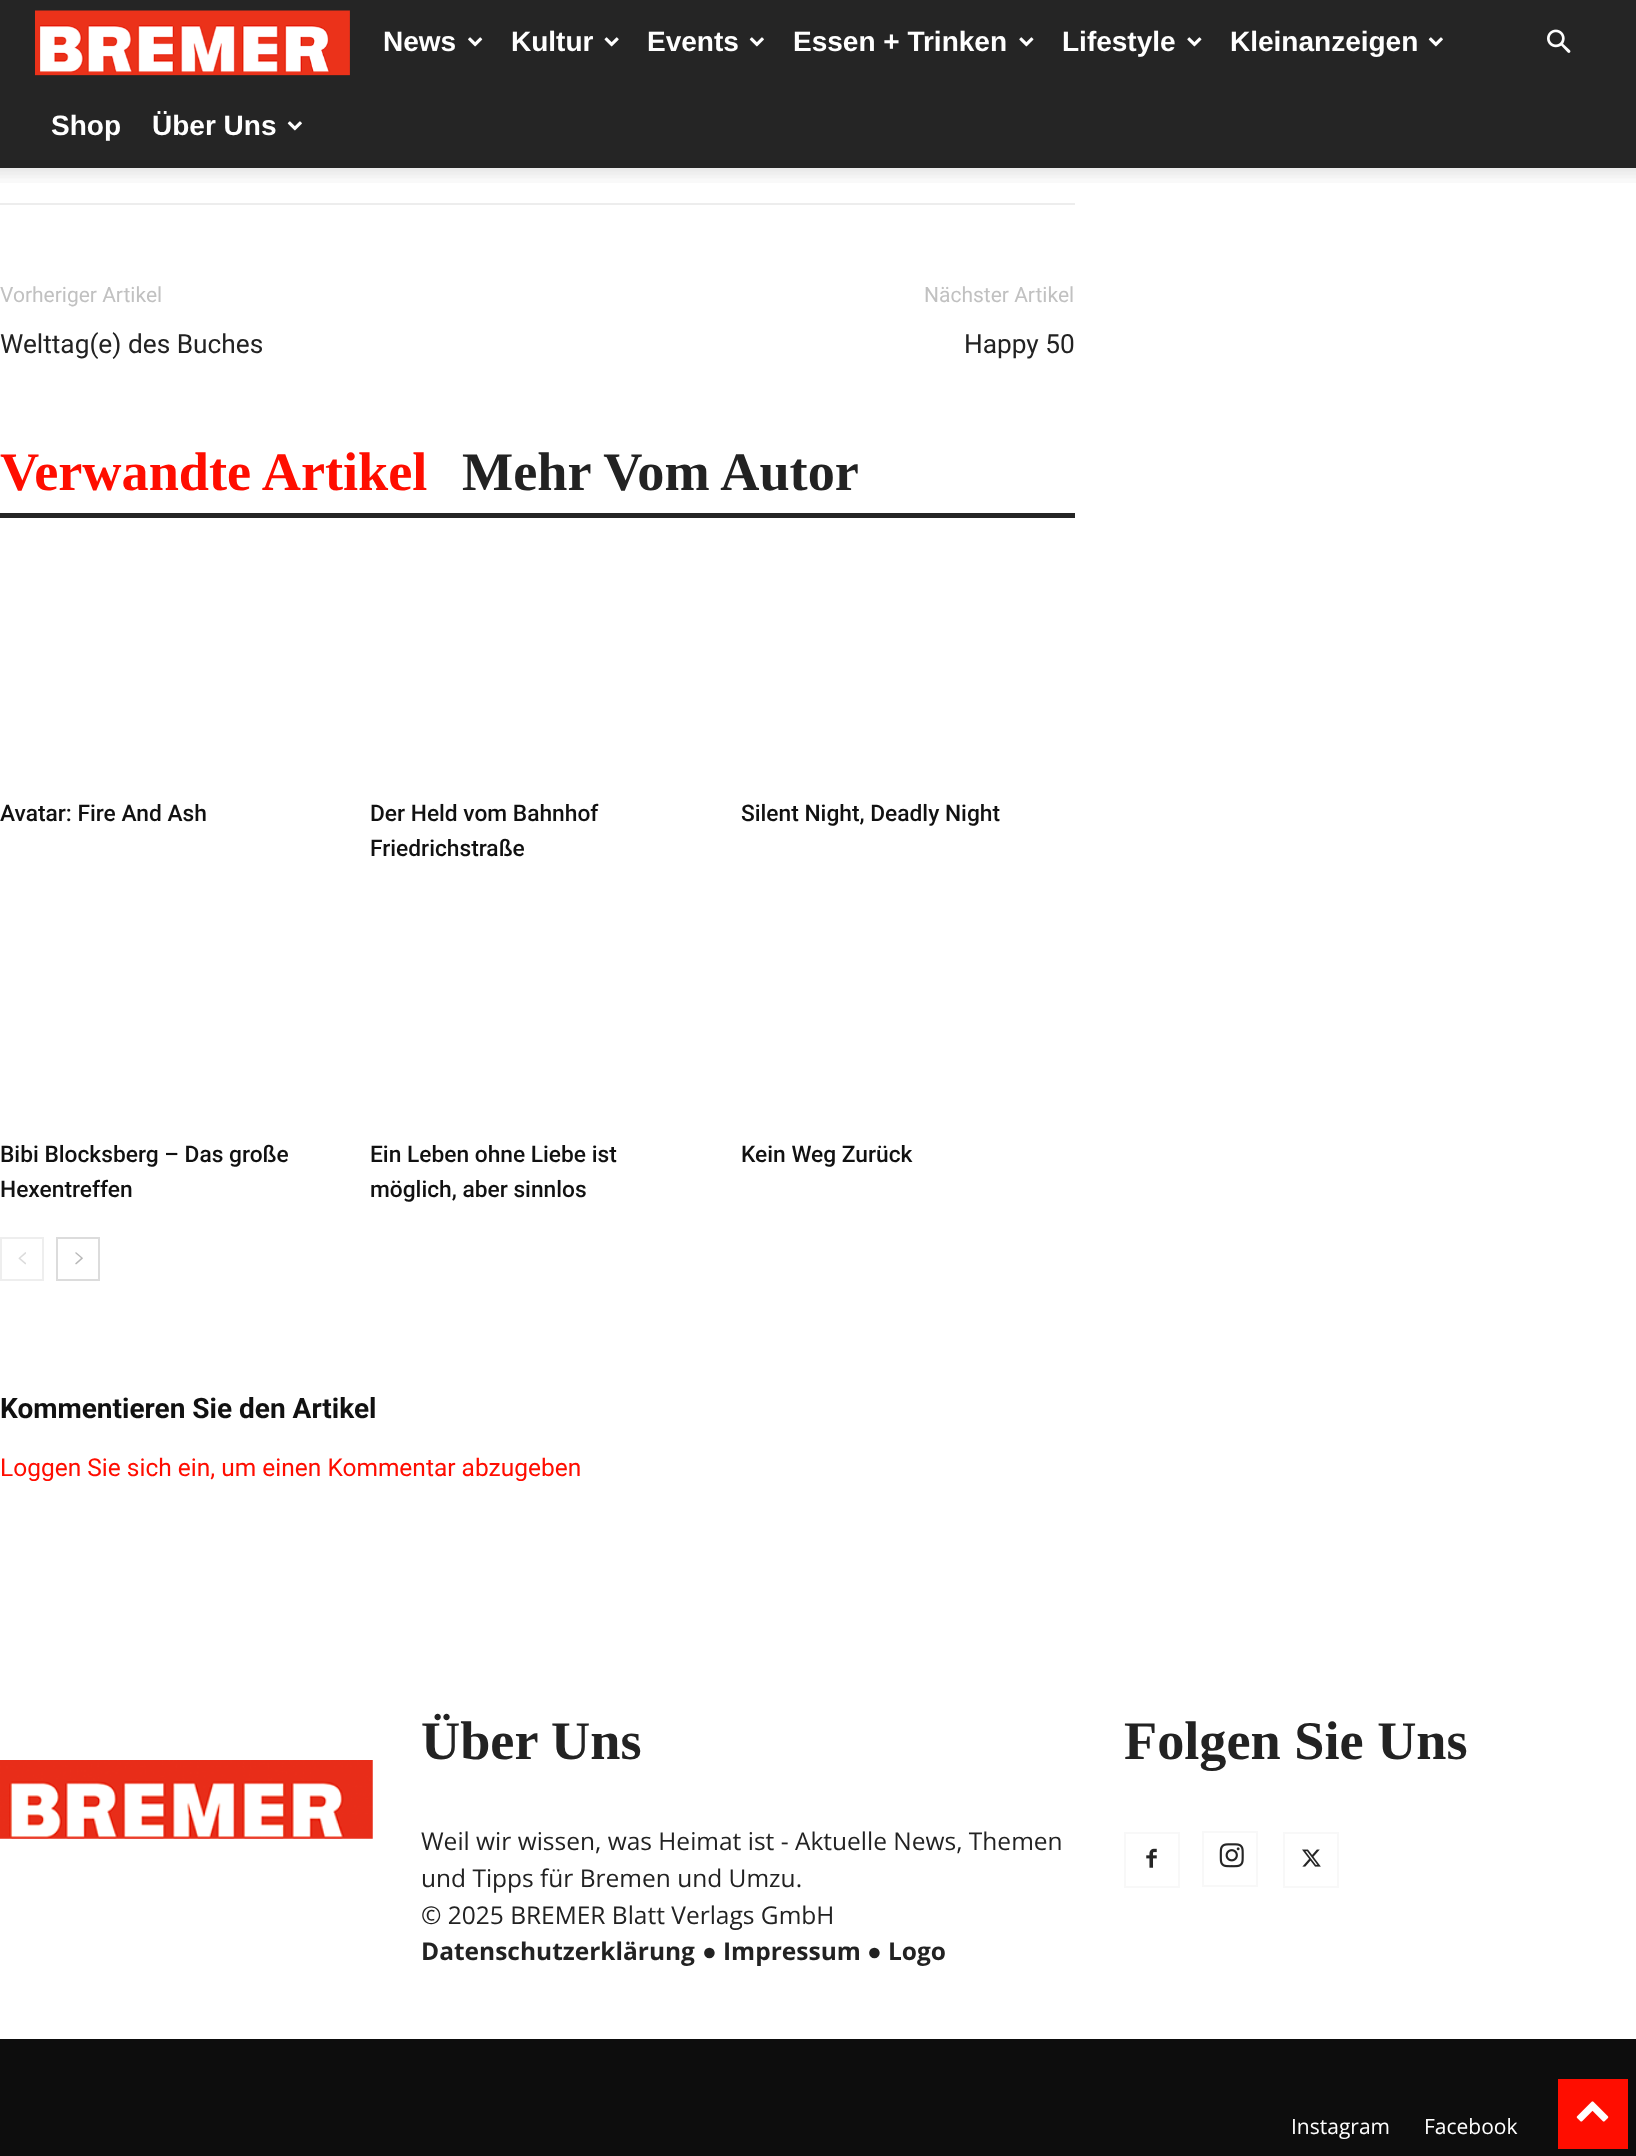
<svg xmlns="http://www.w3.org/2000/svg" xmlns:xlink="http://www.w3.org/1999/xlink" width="1636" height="2156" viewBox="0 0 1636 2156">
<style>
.cls-1{font:bold 28px Liberation Sans;fill:#ffffff}
.cls-2{font:21px Roboto;fill:#c1c1c1}
.cls-3{font:26.25px Roboto;fill:#222222}
.cls-4{font:bold 54.25px Liberation Serif;fill:#ff0d00}
.cls-5{font:bold 54.25px Liberation Serif;fill:#222222}
.cls-6{font:500 22.75px Roboto;fill:#111111}
.cls-7{font:bold 28px Roboto;fill:#111111}
.cls-8{font:24.5px Roboto;fill:#ff0d00}
.cls-9{font:24.5px Open Sans;fill:#222222}
.cls-10{font:bold 24.5px Open Sans;fill:#222222}
.cls-11{font:bold 24.5px Liberation Sans;fill:#222222}
.cls-12{font:21px Open Sans;fill:#ffffff}
</style>
<rect width="100%" height="100%" fill="#ffffff"/>
<rect fill="#252525" x="0" y="0" width="1636" height="168"/>
<image xlink:href="image0.png" x="35" y="10" width="315" height="66"/>
<image xlink:href="image1.png" x="468" y="37" width="15" height="10"/>
<image xlink:href="image2.png" x="604" y="37" width="15" height="10"/>
<image xlink:href="image3.png" x="749" y="37" width="15" height="10"/>
<image xlink:href="image4.png" x="1019" y="37" width="15" height="10"/>
<image xlink:href="image4.png" x="1187" y="37" width="15" height="10"/>
<image xlink:href="image3.png" x="1428" y="37" width="15" height="10"/>
<image xlink:href="image3.png" x="287" y="121" width="15" height="10"/>
<image xlink:href="image5.png" x="1547" y="29" width="24" height="24"/>
<image xlink:href="image6.png" x="0" y="168" width="1636" height="15"/>
<rect fill="#ededed" x="0" y="203" width="1075" height="2"/>
<rect fill="#252525" x="0" y="513" width="1075" height="5"/>
<rect fill="none" stroke="#eeeeee" stroke-width="2" x="1" y="1238" width="42" height="42"/>
<image xlink:href="image7.png" x="18" y="1252" width="8" height="13"/>
<rect fill="none" stroke="#dcdcdc" stroke-width="2" x="57" y="1238" width="42" height="42"/>
<image xlink:href="image8.png" x="75" y="1252" width="8" height="13"/>
<image xlink:href="image9.png" x="1146" y="1848" width="11" height="20"/>
<rect fill="none" stroke="#f8f8f8" stroke-width="2" x="1125" y="1833" width="54" height="54"/>
<image xlink:href="image10.png" x="1219" y="1843" width="25" height="25"/>
<rect fill="none" stroke="#f8f8f8" stroke-width="2" x="1203" y="1832" width="54" height="54"/>
<image xlink:href="image11.png" x="1302" y="1849" width="19" height="18"/>
<rect fill="none" stroke="#f8f8f8" stroke-width="2" x="1284" y="1833" width="54" height="54"/>
<image xlink:href="image12.png" x="0" y="1760" width="373" height="79"/>
<rect fill="#0d0d0d" x="0" y="2039" width="1636" height="117"/>
<rect fill="#ff0d00" x="1558" y="2079" width="70" height="70"/>
<image xlink:href="image13.png" x="1576" y="2101" width="33" height="21"/>
<text class="cls-1" x="383" y="51">News</text>
<text class="cls-1" x="511" y="51">Kultur</text>
<text class="cls-1" x="647" y="51">Events</text>
<text class="cls-1" x="793" y="51">Essen + Trinken</text>
<text class="cls-1" x="1062" y="51">Lifestyle</text>
<text class="cls-1" x="1230" y="51">Kleinanzeigen</text>
<text class="cls-1" x="51" y="135">Shop</text>
<text class="cls-1" x="152" y="135">Über Uns</text>
<text class="cls-2" x="0" y="302">Vorheriger Artikel</text>
<text class="cls-3" x="0" y="353">Welttag(e) des Buches</text>
<text class="cls-2" x="924" y="302">Nächster Artikel</text>
<text class="cls-3" x="964" y="353">Happy 50</text>
<text class="cls-4" x="0" y="490">Verwandte Artikel</text>
<text class="cls-5" x="462" y="490">Mehr Vom Autor</text>
<text class="cls-6" x="0" y="821">Avatar: Fire And Ash</text>
<text class="cls-6"><tspan x="370" y="821">Der Held vom Bahnhof</tspan><tspan x="370" y="856">Friedrichstraße</tspan></text>
<text class="cls-6" x="741" y="821">Silent Night, Deadly Night</text>
<text class="cls-6"><tspan x="0" y="1162">Bibi Blocksberg – Das große</tspan><tspan x="0" y="1197">Hexentreffen</tspan></text>
<text class="cls-6"><tspan x="370" y="1162">Ein Leben ohne Liebe ist</tspan><tspan x="370" y="1197">möglich, aber sinnlos</tspan></text>
<text class="cls-6" x="741" y="1162">Kein Weg Zurück</text>
<text class="cls-7" x="0" y="1418">Kommentieren Sie den Artikel</text>
<text class="cls-8" x="0" y="1476">Loggen Sie sich ein, um einen Kommentar abzugeben</text>
<text class="cls-5" x="421" y="1759">Über Uns</text>
<text class="cls-9"><tspan x="421" y="1850">Weil wir wissen, was Heimat ist - Aktuelle News, Themen</tspan><tspan x="421" y="1887">und Tipps für Bremen und Umzu.</tspan><tspan x="421" y="1924">© 2025 BREMER Blatt Verlags GmbH</tspan></text>
<text class="cls-10" x="421" y="1960">Datenschutzerklärung</text>
<text class="cls-11" x="702" y="1960">●</text>
<text class="cls-10" x="723" y="1960">Impressum</text>
<text class="cls-11" x="867" y="1960">●</text>
<text class="cls-10" x="888" y="1960">Logo</text>
<text class="cls-5" x="1124" y="1759">Folgen Sie Uns</text>
<text class="cls-12" x="1291" y="2134">Instagram</text>
<text class="cls-12" x="1424" y="2134">Facebook</text>
</svg>
